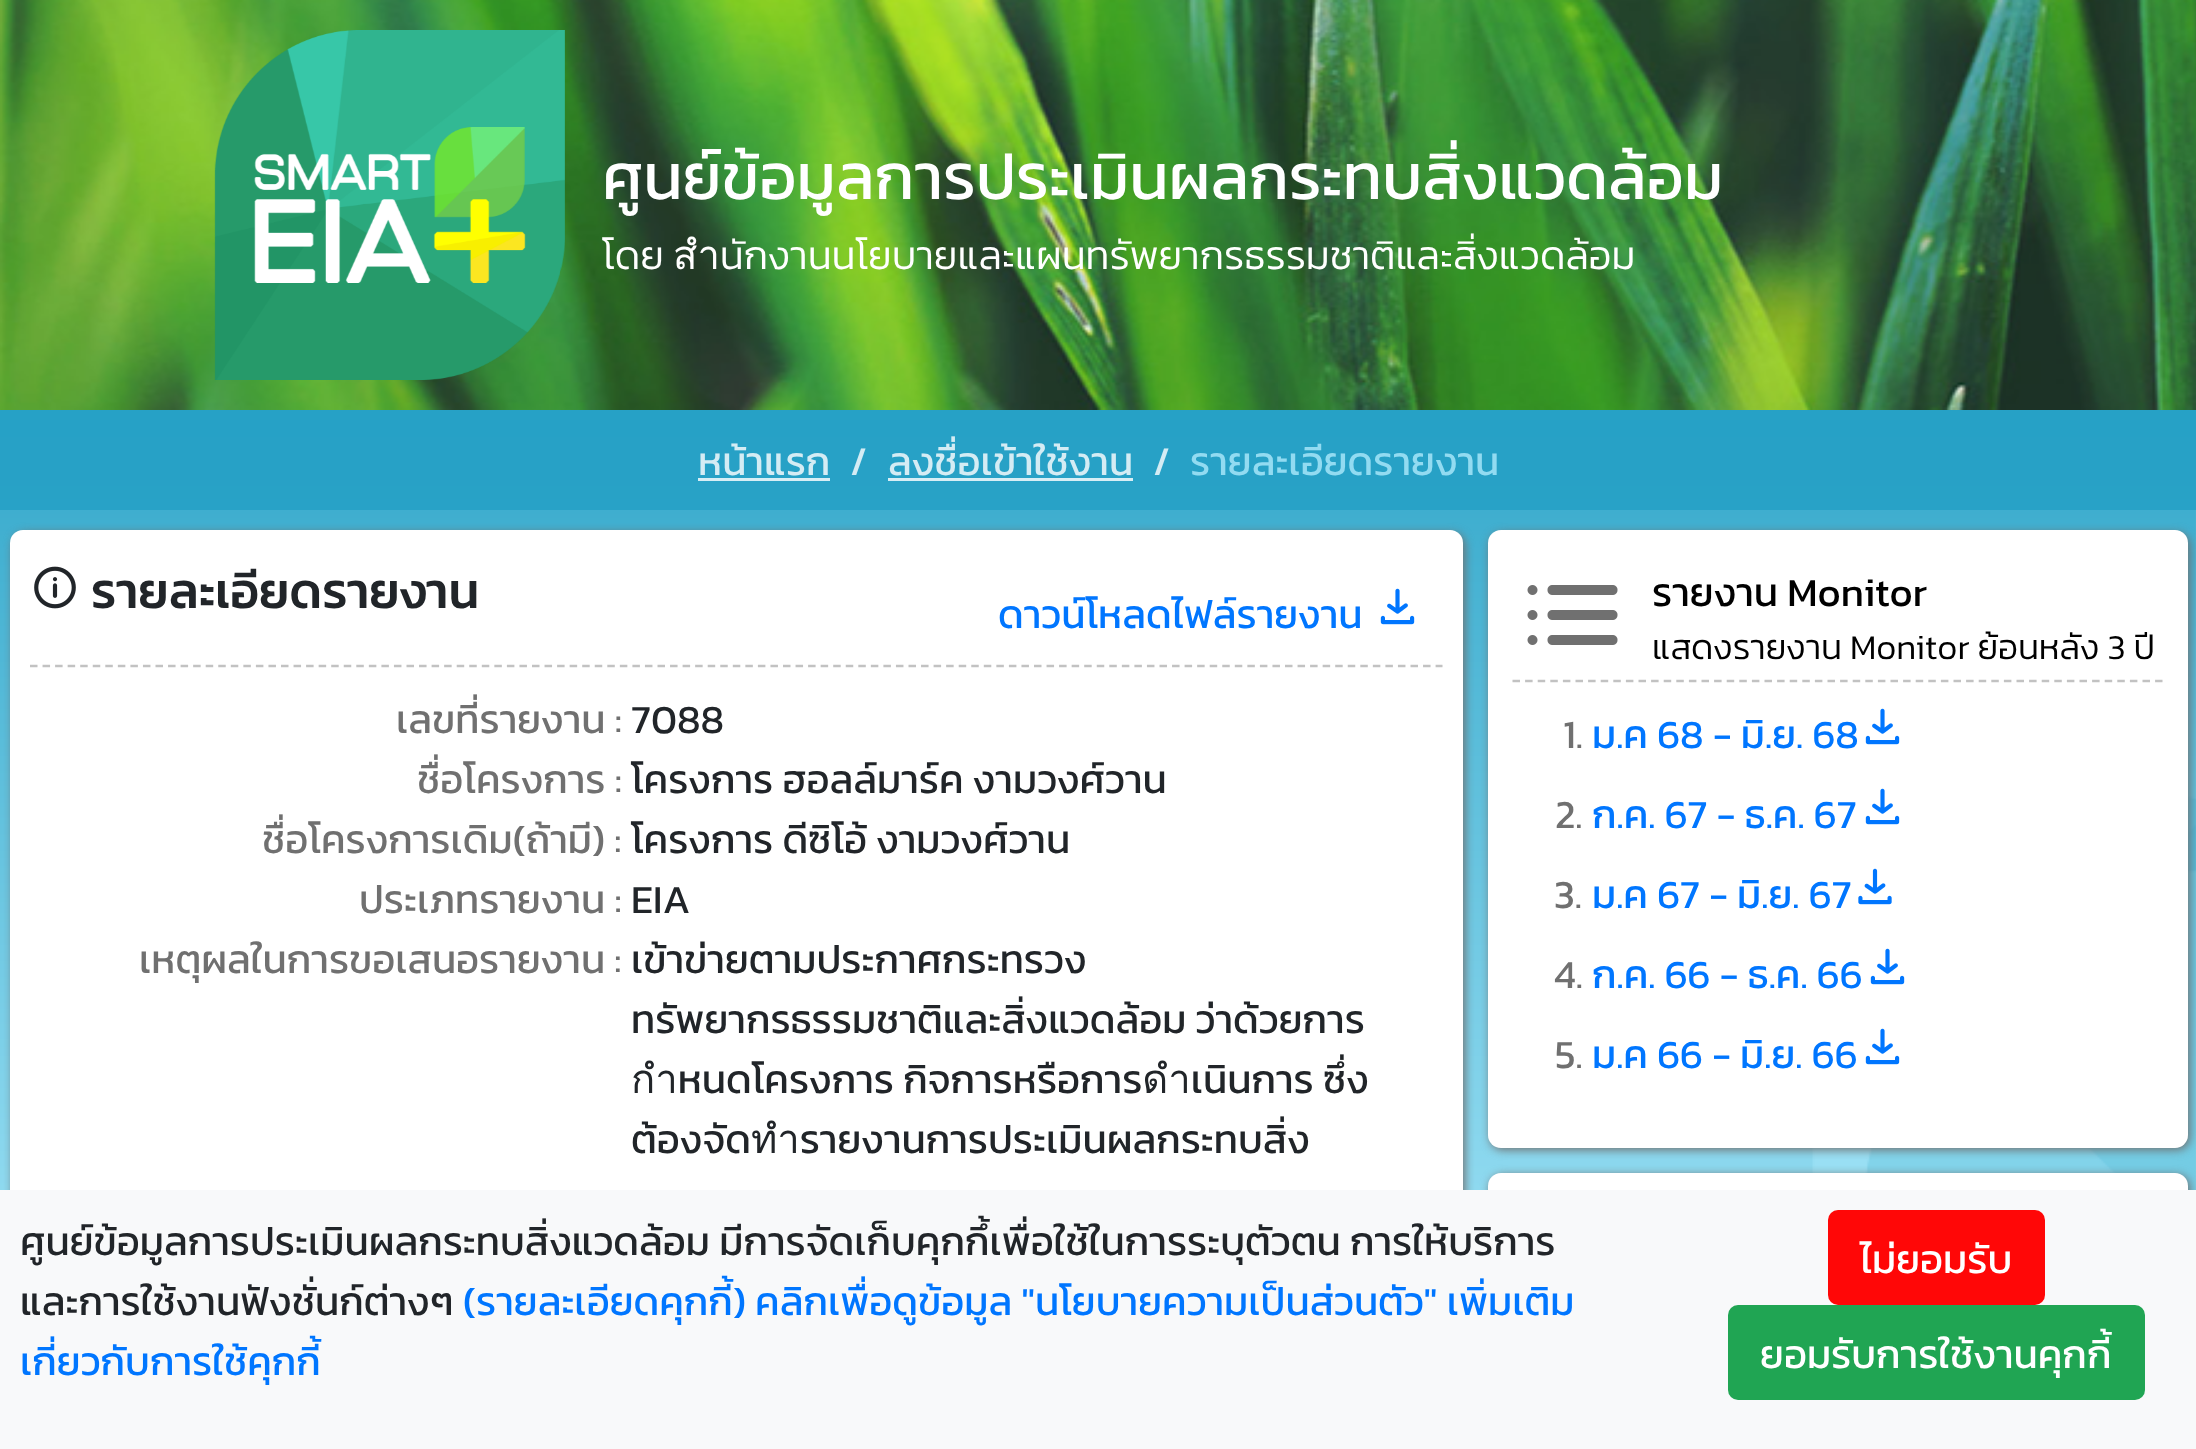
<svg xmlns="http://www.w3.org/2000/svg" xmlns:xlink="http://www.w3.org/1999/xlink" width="2196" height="1449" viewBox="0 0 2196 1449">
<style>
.cls-1{font:65px Kanit;fill:#ffffff}
.cls-2{font:300 40px Kanit;fill:#ffffff}
.cls-3{font:40px Kanit;fill:#d4ecf4}
.cls-4{font:40px Kanit;fill:#92dbf1}
.cls-5{font:500 50px Kanit;fill:#212529}
.cls-6{font:40px Kanit;fill:#0076ff}
.cls-7{font:40px Kanit;fill:#707070}
.cls-8{font:40px Kanit;fill:#212529}
.cls-9{font:40px Kanit;fill:#000000}
.cls-10{font:300 35px Kanit;fill:#000000}
.cls-11{font:40px Kanit;fill:#ffffff}
</style>
<rect width="100%" height="100%" fill="#ffffff"/>
<image xlink:href="image0.png" x="0" y="410" width="2196" height="780"/>
<image xlink:href="image1.png" x="0" y="0" width="2196" height="410"/>
<image xlink:href="image2.png" x="214" y="30" width="351" height="350"/>
<rect fill="#239fc4" fill-opacity="0.8" x="0" y="410" width="2196" height="100"/>
<rect fill="#d8eef5" x="698" y="478" width="132" height="3"/>
<rect fill="#d8eef5" x="888" y="478" width="245" height="3"/>
<rect fill="#707070" filter="blur(5px)" x="13" y="533" width="1452" height="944" rx="13"/>
<rect fill="#ffffff" x="10" y="530" width="1453" height="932" rx="13"/>
<image xlink:href="image3.png" x="34" y="566" width="42" height="43"/>
<image xlink:href="image4.png" x="1380" y="588" width="35" height="37"/>
<path fill="none" stroke="#c2c2c2" stroke-width="2.5" stroke-dasharray="7.5 5.05" d="M30 666H1442.5"/>
<rect fill="#707070" filter="blur(5px)" x="1490" y="533" width="700" height="617" rx="13"/>
<rect fill="#ffffff" x="1488" y="530" width="700" height="618" rx="13"/>
<image xlink:href="image5.png" x="1527" y="585" width="91" height="60"/>
<path fill="none" stroke="#c2c2c2" stroke-width="2.5" stroke-dasharray="7.5 5.1" d="M1512.5 681H2162.5"/>
<image xlink:href="image4.png" x="1865" y="708" width="35" height="37"/>
<image xlink:href="image4.png" x="1865" y="788" width="35" height="37"/>
<image xlink:href="image6.png" x="1858" y="868" width="34" height="37"/>
<image xlink:href="image4.png" x="1870" y="948" width="35" height="37"/>
<image xlink:href="image4.png" x="1865" y="1028" width="35" height="37"/>
<rect fill="#707070" filter="blur(5px)" x="1490" y="1175" width="700" height="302" rx="13"/>
<rect fill="#ffffff" x="1488" y="1173" width="700" height="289" rx="13"/>
<rect fill="#f8f9fa" x="0" y="1190" width="2196" height="259"/>
<rect fill="#ff0707" x="1828" y="1210" width="217" height="95" rx="10"/>
<rect fill="#20a553" x="1728" y="1305" width="417" height="95" rx="10"/>
<text class="cls-1" x="602" y="199">ศูนย์ข้อมูลการประเมินผลกระทบสิ่งแวดล้อม</text>
<text class="cls-2" x="602" y="269">โดย สำนักงานนโยบายและแผนทรัพยากรธรรมชาติและสิ่งแวดล้อม</text>
<text class="cls-3" x="698" y="475">หน้าแรก</text>
<text class="cls-3" x="850" y="475">/</text>
<text class="cls-3" x="888" y="475">ลงชื่อเข้าใช้งาน</text>
<text class="cls-3" x="1153" y="475">/</text>
<text class="cls-4" x="1190" y="475">รายละเอียดรายงาน</text>
<text class="cls-5" x="91" y="608">รายละเอียดรายงาน</text>
<text class="cls-6" x="998" y="628">ดาวน์โหลดไฟล์รายงาน</text>
<text class="cls-7" x="396" y="733">เลขที่รายงาน :</text>
<text class="cls-8" x="631" y="733">7088</text>
<text class="cls-7" x="417" y="793">ชื่อโครงการ :</text>
<text class="cls-8" x="631" y="793">โครงการ ฮอลล์มาร์ค งามวงศ์วาน</text>
<text class="cls-7" x="262" y="853">ชื่อโครงการเดิม(ถ้ามี) :</text>
<text class="cls-8" x="631" y="853">โครงการ ดีซิโอ้ งามวงศ์วาน</text>
<text class="cls-7" x="359" y="913">ประเภทรายงาน :</text>
<text class="cls-8" x="631" y="913">EIA</text>
<text class="cls-7" x="139" y="973">เหตุผลในการขอเสนอรายงาน :</text>
<text class="cls-8"><tspan x="631" y="973">เข้าข่ายตามประกาศกระทรวง</tspan><tspan x="631" y="1033">ทรัพยากรธรรมชาติและสิ่งแวดล้อม ว่าด้วยการ</tspan><tspan x="631" y="1093">กำหนดโครงการ กิจการหรือการดำเนินการ ซึ่ง</tspan><tspan x="631" y="1153">ต้องจัดทำรายงานการประเมินผลกระทบสิ่ง</tspan></text>
<text class="cls-9" x="1652" y="606">รายงาน Monitor</text>
<text class="cls-10" x="1652" y="659">แสดงรายงาน Monitor ย้อนหลัง 3 ปี</text>
<text class="cls-7" x="1563" y="748">1.</text>
<text class="cls-6" x="1592" y="748">ม.ค 68 - มิ.ย. 68</text>
<text class="cls-7" x="1555" y="828">2.</text>
<text class="cls-6" x="1592" y="828">ก.ค. 67 - ธ.ค. 67</text>
<text class="cls-7" x="1554" y="908">3.</text>
<text class="cls-6" x="1592" y="908">ม.ค 67 - มิ.ย. 67</text>
<text class="cls-7" x="1554" y="988">4.</text>
<text class="cls-6" x="1592" y="988">ก.ค. 66 - ธ.ค. 66</text>
<text class="cls-7" x="1555" y="1068">5.</text>
<text class="cls-6" x="1592" y="1068">ม.ค 66 - มิ.ย. 66</text>
<text class="cls-8"><tspan x="20" y="1255">ศูนย์ข้อมูลการประเมินผลกระทบสิ่งแวดล้อม มีการจัดเก็บคุกกึ้เพื่อใช้ในการระบุตัวตน การให้บริการ</tspan><tspan x="20" y="1315">และการใช้งานฟังชั่นก์ต่างๆ</tspan></text>
<text class="cls-6" x="463" y="1315">(รายละเอียดคุกกี้) คลิกเพื่อดูข้อมูล "นโยบายความเป็นส่วนตัว" เพิ่มเติม</text>
<text class="cls-6" x="20" y="1375">เกี่ยวกับการใช้คุกกี้</text>
<text class="cls-11" x="1860" y="1273">ไม่ยอมรับ</text>
<text class="cls-11" x="1760" y="1368">ยอมรับการใช้งานคุกกี้</text>
</svg>
